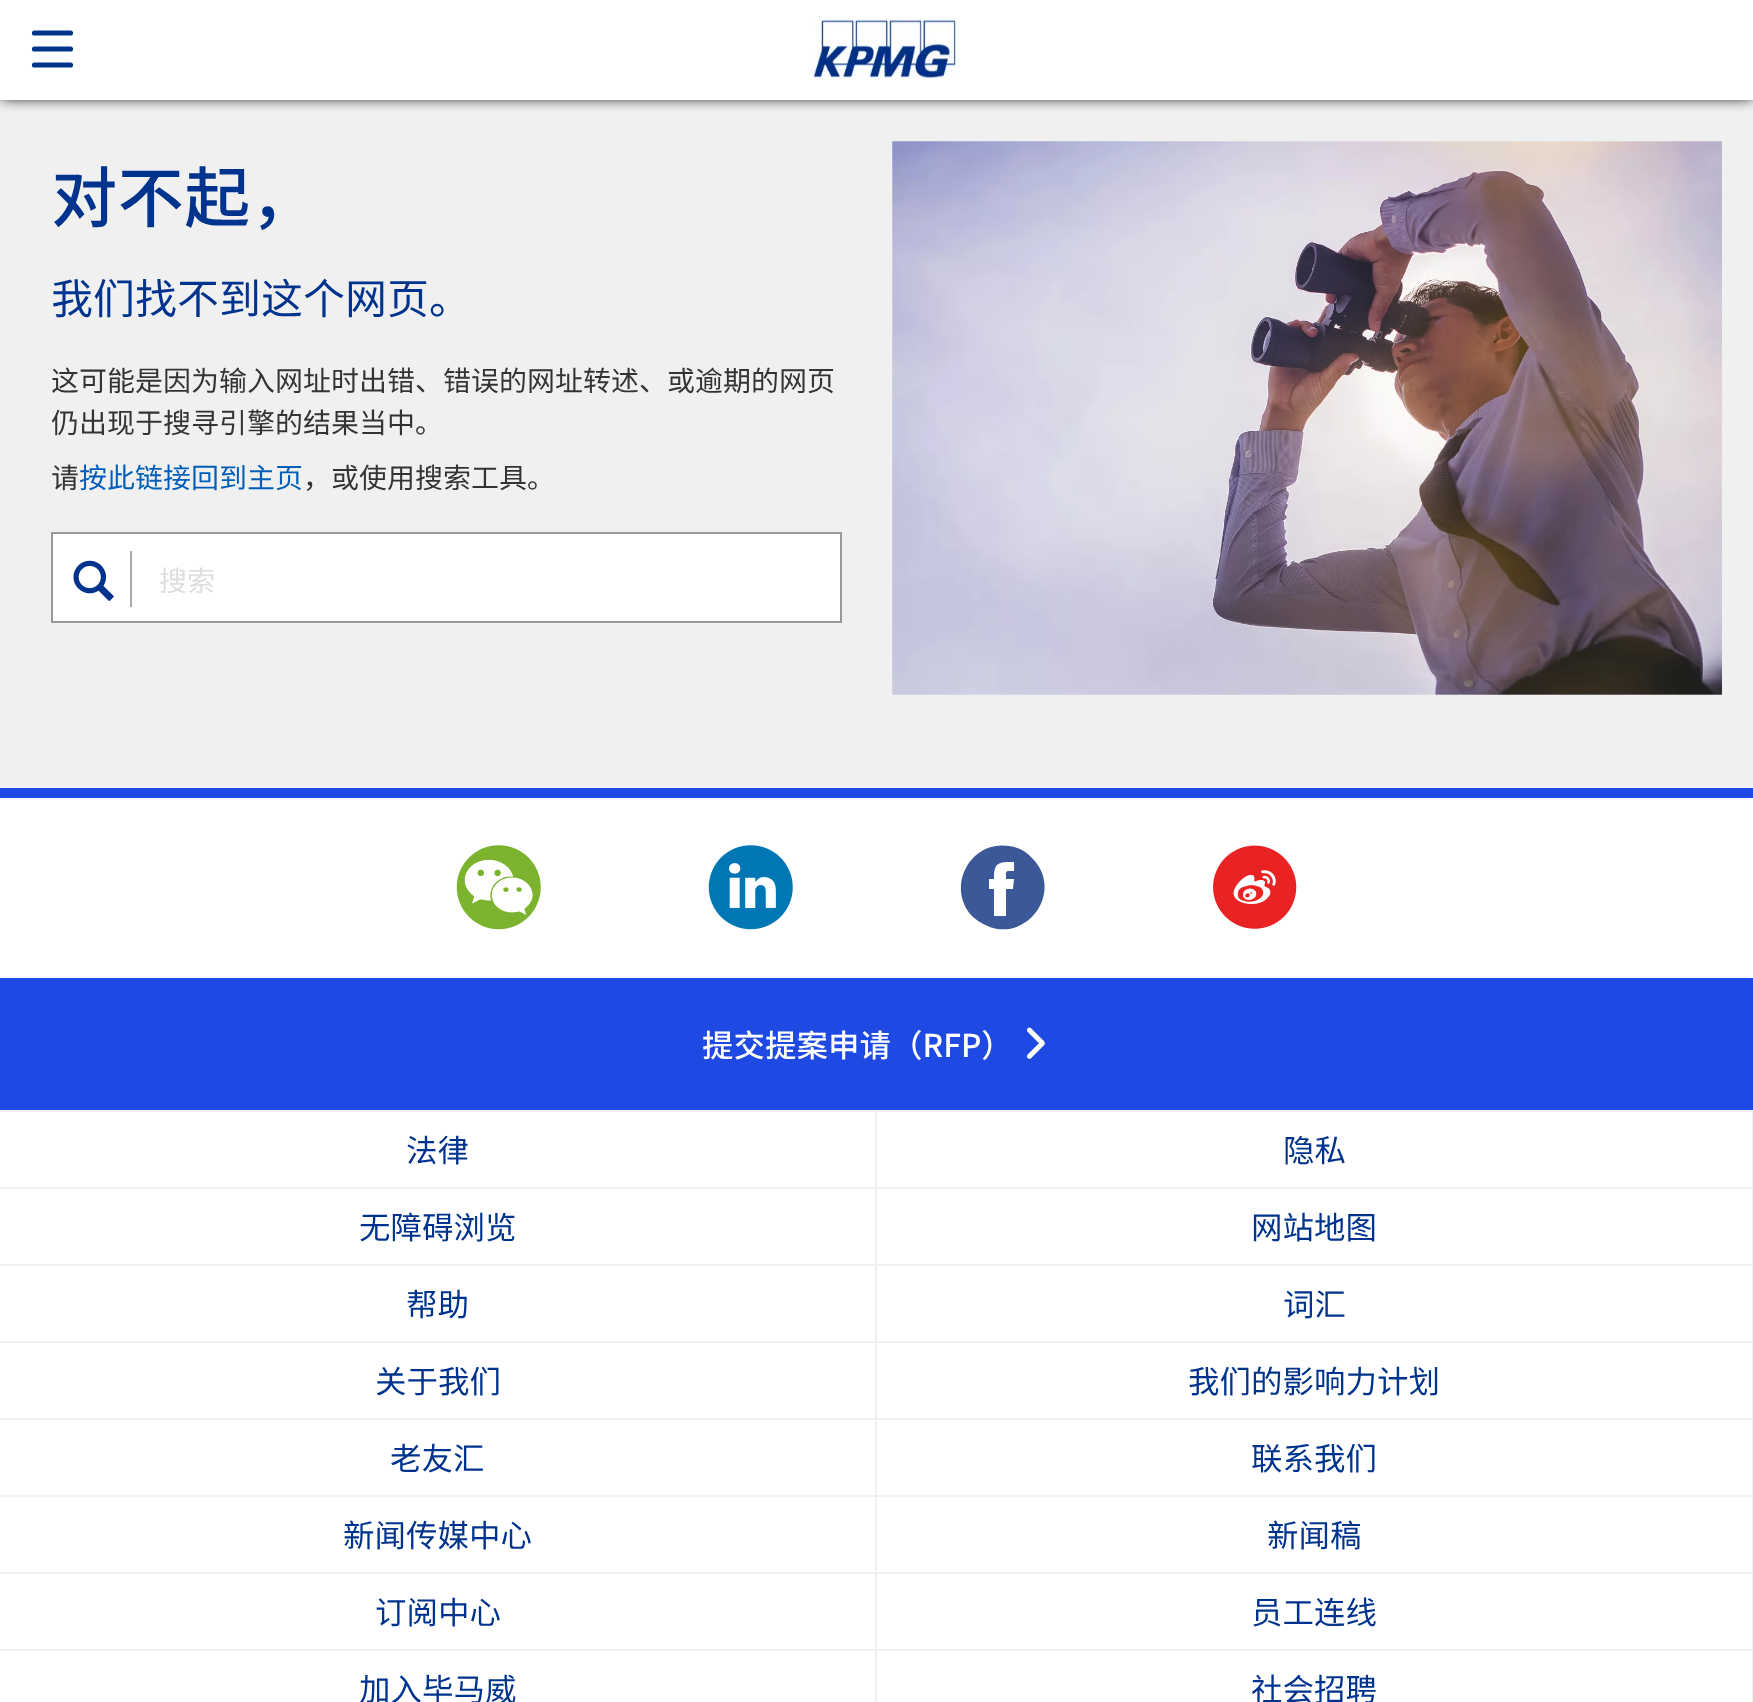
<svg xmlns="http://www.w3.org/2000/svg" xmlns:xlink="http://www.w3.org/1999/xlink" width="1753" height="1702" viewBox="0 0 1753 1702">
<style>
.cls-1{font:500 66.5px Noto Sans SC;fill:#00338d}
.cls-2{font:42px Noto Sans SC;fill:#00338d}
.cls-3{font:28px Noto Sans SC;fill:#333333}
.cls-4{font:28px Noto Sans SC;fill:#005eb8}
.cls-5{font:28px Noto Sans CJK SC;fill:#dedede}
.cls-6{font:500 31.5px Noto Sans SC;fill:#ffffff}
.cls-7{font:31.5px Noto Sans SC;fill:#00338d}
</style>
<rect width="100%" height="100%" fill="#f0f0f0"/>
<rect fill="#000000" filter="blur(7px)" x="0" y="-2" width="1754" height="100" rx="7"/>
<rect fill="#ffffff" x="0" y="0" width="1753" height="100"/>
<path fill="none" stroke="#00338d" stroke-width="5.2" stroke-linecap="round" d="M34.5 33H70.5M34.5 49H70.5M34.5 65H70.5"/>
<image xlink:href="image0.png" x="810" y="19" width="149" height="60"/>
<rect fill="#ffffff" stroke="#999999" stroke-width="2" x="52" y="533" width="789" height="89"/>
<image xlink:href="image1.png" x="73" y="560" width="41" height="41"/>
<rect fill="#aaa8a9" x="130" y="551" width="2" height="56"/>
<image xlink:href="image2.png" x="892" y="141" width="830" height="554"/>
<image xlink:href="image3.png" x="892" y="141" width="830" height="554"/>
<rect fill="#ffffff" x="0" y="798" width="1753" height="904"/>
<rect fill="#1e49e2" x="0" y="788" width="1753" height="10"/>
<image xlink:href="image4.png" x="456" y="845" width="85" height="85"/>
<image xlink:href="image5.png" x="708" y="845" width="85" height="85"/>
<path fill="#3b5998" d="M1032 858C1026 851 1018 847 1009 846C969 840 945 889 973 917C980 923 988 927 997 929C1036 934 1061 886 1032 858ZM1014 871C1005 871 1006 870 1006 879H1014L1013 889H1006V916H994V889H989V879H994C994 862 998 862 1014 862Z"/>
<image xlink:href="image6.png" x="1213" y="845" width="84" height="84"/>
<rect fill="#1e49e2" x="0" y="978" width="1753" height="132"/>
<image xlink:href="image7.png" x="1026" y="1027" width="19" height="32"/>
<rect fill="#f0f0f0" x="0" y="1110" width="1753" height="2"/>
<rect fill="#f0f0f0" x="875" y="1111" width="2" height="77"/>
<rect fill="#f0f0f0" x="0" y="1187" width="877" height="2"/>
<rect fill="#f0f0f0" x="1752" y="1111" width="1" height="77"/>
<rect fill="#f0f0f0" x="877" y="1187" width="876" height="2"/>
<rect fill="#f0f0f0" x="875" y="1188" width="2" height="77"/>
<rect fill="#f0f0f0" x="0" y="1264" width="877" height="2"/>
<rect fill="#f0f0f0" x="1752" y="1188" width="1" height="77"/>
<rect fill="#f0f0f0" x="877" y="1264" width="876" height="2"/>
<rect fill="#f0f0f0" x="875" y="1265" width="2" height="77"/>
<rect fill="#f0f0f0" x="0" y="1341" width="877" height="2"/>
<rect fill="#f0f0f0" x="1752" y="1265" width="1" height="77"/>
<rect fill="#f0f0f0" x="877" y="1341" width="876" height="2"/>
<rect fill="#f0f0f0" x="875" y="1342" width="2" height="77"/>
<rect fill="#f0f0f0" x="0" y="1418" width="877" height="2"/>
<rect fill="#f0f0f0" x="1752" y="1342" width="1" height="77"/>
<rect fill="#f0f0f0" x="877" y="1418" width="876" height="2"/>
<rect fill="#f0f0f0" x="875" y="1419" width="2" height="77"/>
<rect fill="#f0f0f0" x="0" y="1495" width="877" height="2"/>
<rect fill="#f0f0f0" x="1752" y="1419" width="1" height="77"/>
<rect fill="#f0f0f0" x="877" y="1495" width="876" height="2"/>
<rect fill="#f0f0f0" x="875" y="1496" width="2" height="77"/>
<rect fill="#f0f0f0" x="0" y="1572" width="877" height="2"/>
<rect fill="#f0f0f0" x="1752" y="1496" width="1" height="77"/>
<rect fill="#f0f0f0" x="877" y="1572" width="876" height="2"/>
<rect fill="#f0f0f0" x="875" y="1573" width="2" height="77"/>
<rect fill="#f0f0f0" x="0" y="1649" width="877" height="2"/>
<rect fill="#f0f0f0" x="1752" y="1573" width="1" height="77"/>
<rect fill="#f0f0f0" x="877" y="1649" width="876" height="2"/>
<rect fill="#f0f0f0" x="875" y="1650" width="2" height="52"/>
<rect fill="#f0f0f0" x="1752" y="1650" width="1" height="52"/>
<text class="cls-1" x="51" y="222">对不起，</text>
<text class="cls-2" x="51" y="314">我们找不到这个网页。</text>
<text class="cls-3"><tspan x="51" y="391">这可能是因为输入网址时出错、错误的网址转述、或逾期的网页</tspan><tspan x="51" y="433">仍出现于搜寻引擎的结果当中。</tspan><tspan x="51" y="488">请</tspan></text>
<text class="cls-4" x="79" y="488">按此链接回到主页</text>
<text class="cls-3" x="303" y="488">，或使用搜索工具。</text>
<text class="cls-5" x="159" y="591">搜索</text>
<text class="cls-6" x="702" y="1057">提交提案申请（RFP）</text>
<text class="cls-7" x="406" y="1162">法律</text>
<text class="cls-7" x="1283" y="1162">隐私</text>
<text class="cls-7" x="359" y="1239">无障碍浏览</text>
<text class="cls-7" x="1251" y="1239">网站地图</text>
<text class="cls-7" x="406" y="1316">帮助</text>
<text class="cls-7" x="1283" y="1316">词汇</text>
<text class="cls-7" x="375" y="1393">关于我们</text>
<text class="cls-7" x="1188" y="1393">我们的影响力计划</text>
<text class="cls-7" x="390" y="1470">老友汇</text>
<text class="cls-7" x="1251" y="1470">联系我们</text>
<text class="cls-7" x="343" y="1547">新闻传媒中心</text>
<text class="cls-7" x="1267" y="1547">新闻稿</text>
<text class="cls-7" x="375" y="1624">订阅中心</text>
<text class="cls-7" x="1251" y="1624">员工连线</text>
<text class="cls-7" x="359" y="1701">加入毕马威</text>
<text class="cls-7" x="1251" y="1701">社会招聘</text>
</svg>
